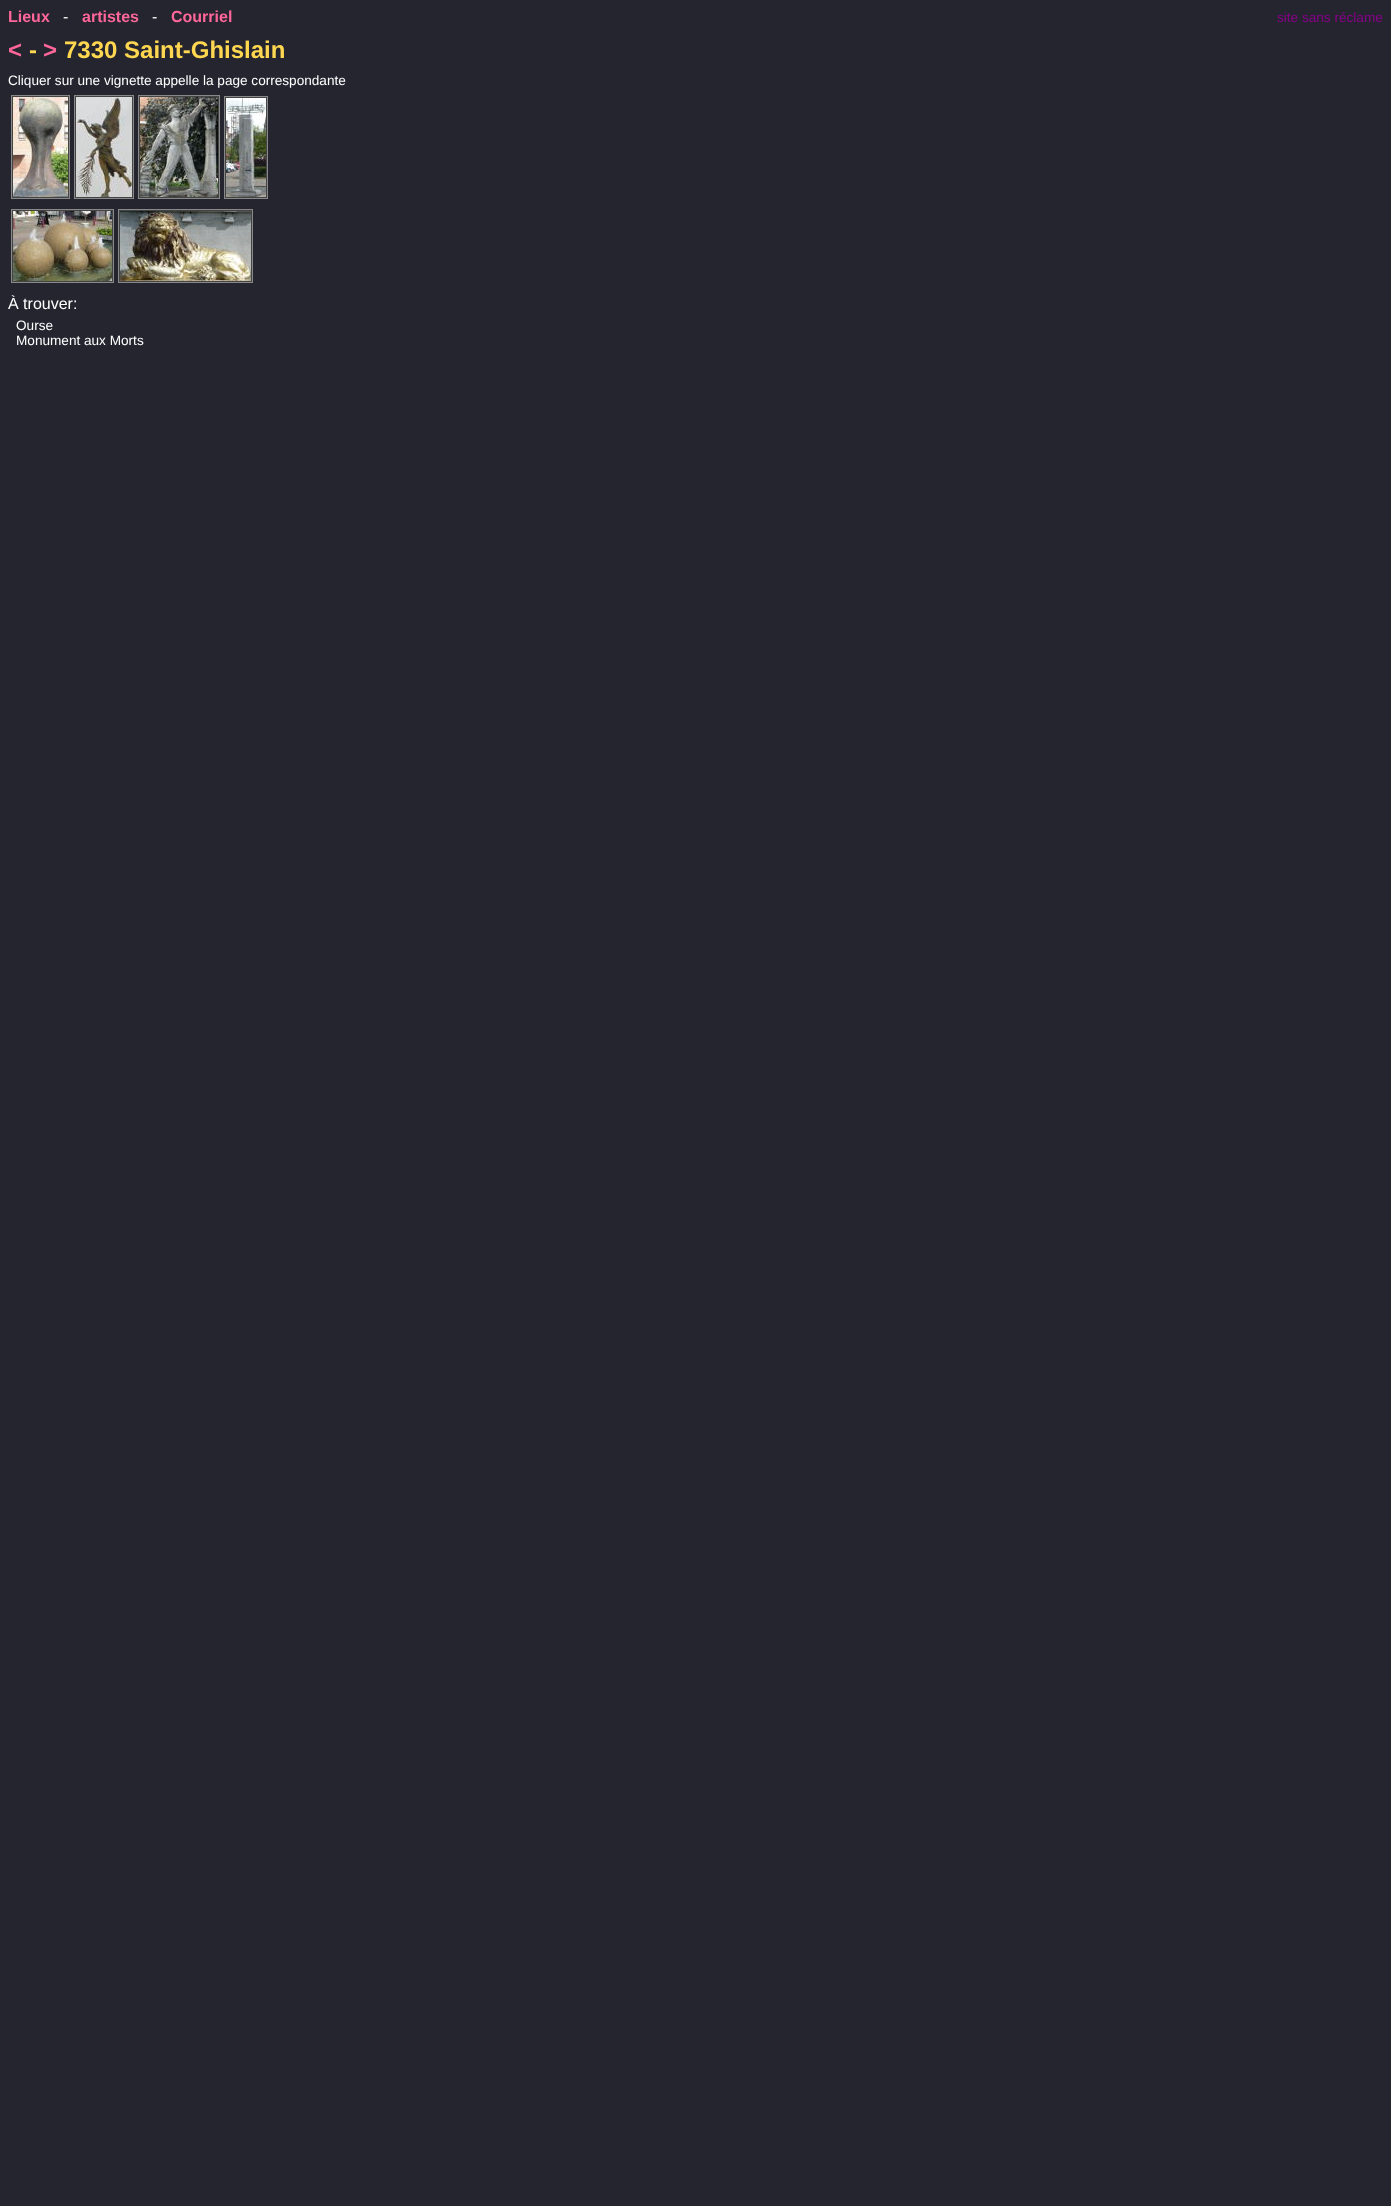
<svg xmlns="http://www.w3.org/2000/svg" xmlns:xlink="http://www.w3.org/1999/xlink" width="1391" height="2206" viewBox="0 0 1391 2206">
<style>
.cls-1{font:bold 16px Liberation Sans;fill:#ff6699}
.cls-2{font:16px Liberation Sans;fill:#ffffff}
.cls-3{font:13.6px Liberation Sans;fill:#880088}
.cls-4{font:bold 24px Liberation Sans;fill:#ff6699}
.cls-5{font:bold 24px Liberation Sans;fill:#ffd750}
.cls-6{font:13.6px Liberation Sans;fill:#ffffff}
</style>
<rect width="100%" height="100%" fill="#252530"/>
<rect fill="#444444" stroke="#888888" x="11.5" y="95.5" width="58" height="103"/>
<image xlink:href="image0.png" x="13" y="97" width="55" height="100"/>
<rect fill="#444444" stroke="#888888" x="74.5" y="95.5" width="59" height="103"/>
<image xlink:href="image1.png" x="76" y="97" width="56" height="100"/>
<rect fill="#444444" stroke="#888888" x="138.5" y="95.5" width="81" height="103"/>
<image xlink:href="image2.png" x="140" y="97" width="78" height="100"/>
<rect fill="#444444" stroke="#888888" x="224.5" y="96.5" width="43" height="102"/>
<image xlink:href="image3.png" x="226" y="98" width="40" height="99"/>
<rect fill="#444444" stroke="#888888" x="11.5" y="209.5" width="102" height="73"/>
<image xlink:href="image4.png" x="13" y="211" width="99" height="70"/>
<rect fill="#444444" stroke="#888888" x="118.5" y="209.5" width="134" height="73"/>
<image xlink:href="image5.png" x="120" y="211" width="131" height="70"/>
<text class="cls-1" x="8" y="22">Lieux</text>
<text class="cls-2" x="63" y="22">-</text>
<text class="cls-1" x="82" y="22">artistes</text>
<text class="cls-2" x="152" y="22">-</text>
<text class="cls-1" x="171" y="22">Courriel</text>
<text class="cls-3" x="1277" y="22">site sans réclame</text>
<text class="cls-4" x="8" y="58">&lt;</text>
<text class="cls-5" x="29" y="58">-</text>
<text class="cls-4" x="43" y="58">&gt;</text>
<text class="cls-5" x="64" y="58">7330 Saint-Ghislain</text>
<text class="cls-6" x="8" y="85">Cliquer sur une vignette appelle la page correspondante</text>
<text class="cls-2" x="8" y="309">À trouver:</text>
<text class="cls-6"><tspan x="16" y="330">Ourse</tspan><tspan x="16" y="345">Monument aux Morts</tspan></text>
</svg>
